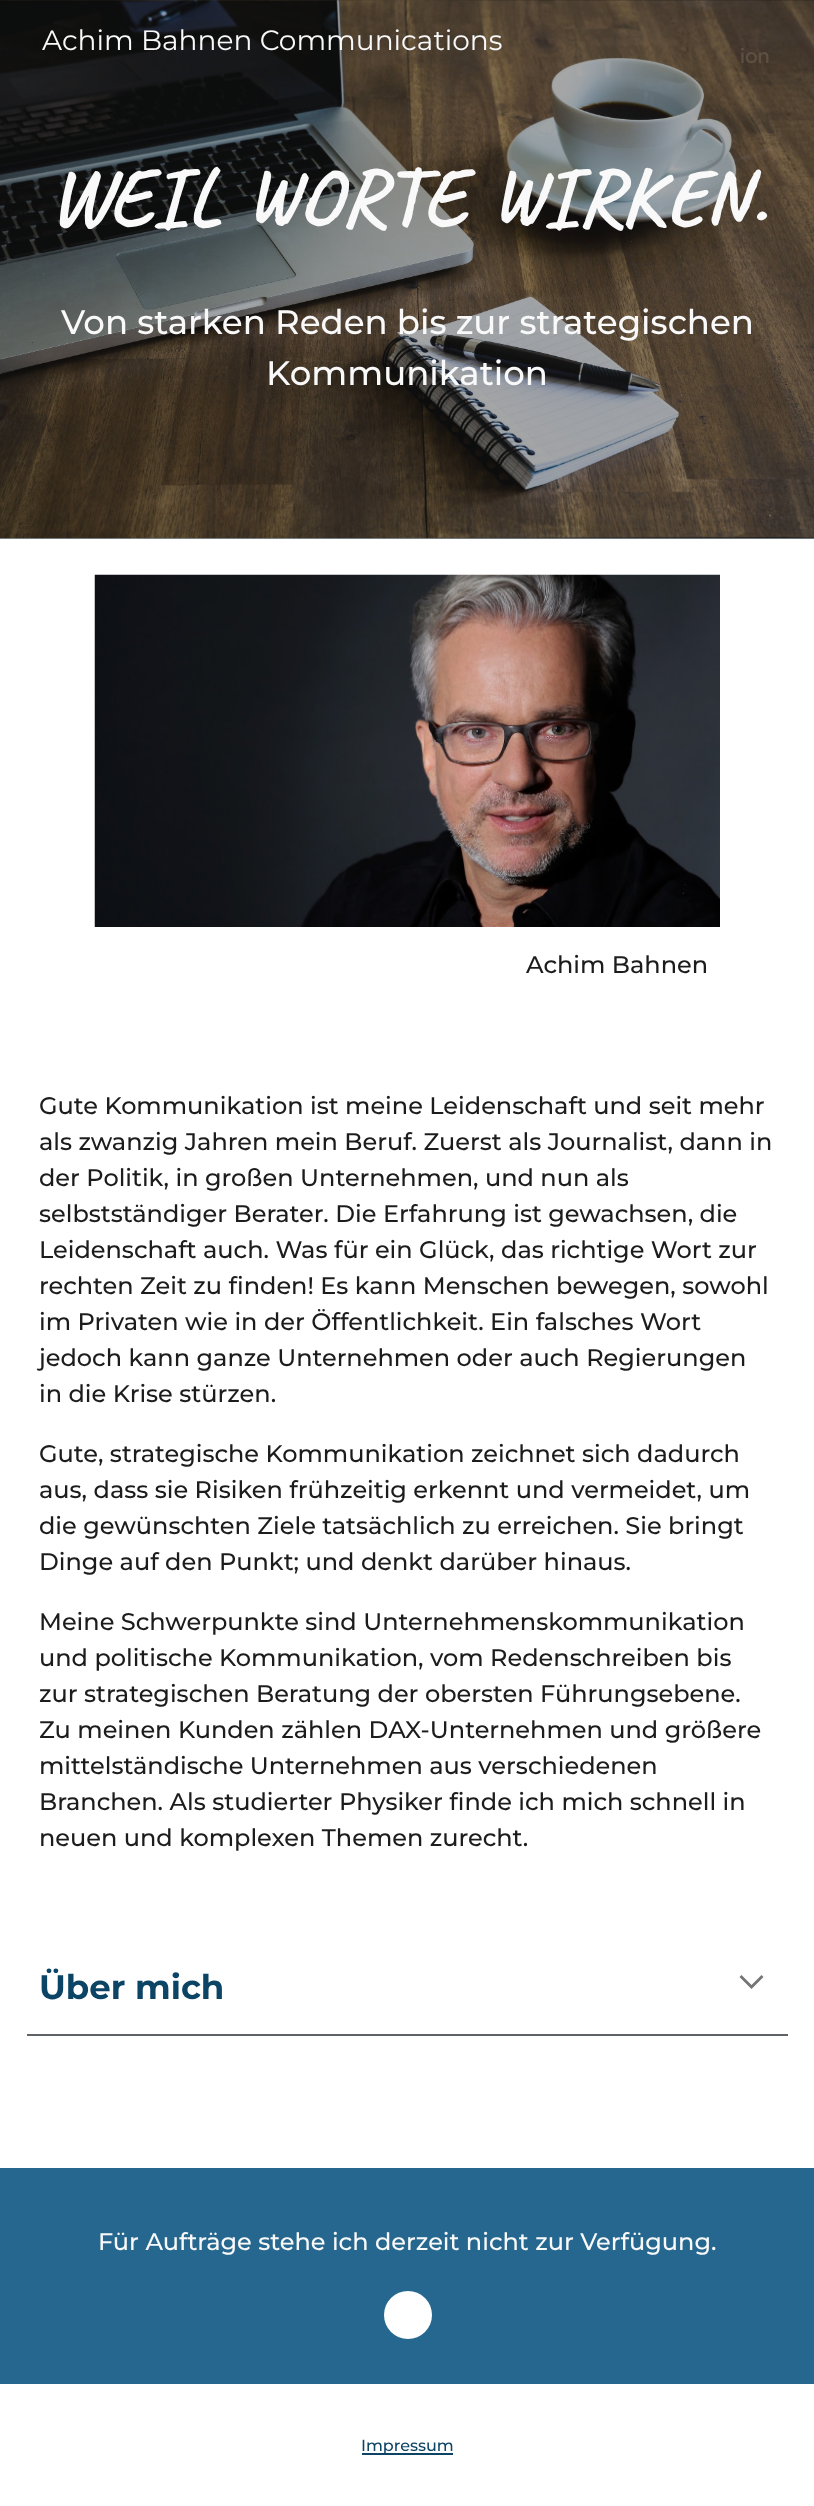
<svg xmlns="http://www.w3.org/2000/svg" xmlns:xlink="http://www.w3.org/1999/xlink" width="814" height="2506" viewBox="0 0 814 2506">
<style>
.cls-1{font:28px Montserrat;fill:#f9f9f9}
.cls-2{font:bold 82px Caveat;fill:#f9f9f9}
.cls-3{font:500 34px Montserrat;fill:#f9f9f9}
.cls-4{font:500 24px Montserrat;fill:#1c1c1c}
.cls-5{font:bold 34px Montserrat;fill:#0c4466}
.cls-6{font:500 24px Montserrat;fill:#f9f9f9}
.cls-7{font:500 16px Montserrat;fill:#0c4466}
.cls-8{font:500 21px Google Sans;fill:#5c5042}
</style>
<rect width="100%" height="100%" fill="#ffffff"/>
<rect fill="#89949f" x="0" y="538" width="814" height="1"/>
<image xlink:href="image0.png" x="0" y="0" width="814" height="539"/>
<image xlink:href="image1.png" x="94" y="574" width="626" height="353"/>
<rect fill="#5f6368" x="27" y="2034" width="761" height="2"/>
<path fill="#757575" d="M741.5 1975L739.5 1977L751.5 1989L763.5 1977L761.5 1975L751.5 1985"/>
<rect fill="#25678e" x="0" y="2168" width="814" height="216"/>
<circle fill="#ffffff" cx="408" cy="2315" r="24"/>
<rect fill="#0c4466" x="362" y="2453" width="91" height="2"/>
<text class="cls-1" x="42" y="50">Achim Bahnen Communications</text>
<text class="cls-2" x="49" y="224">WEIL WORTE WIRKEN.</text>
<text class="cls-3" x="61" y="334">Von starken Reden bis zur strategischen</text>
<text class="cls-3" x="266" y="385">Kommunikation</text>
<text class="cls-4" x="526" y="973">Achim Bahnen</text>
<text class="cls-4"><tspan x="39" y="1114">Gute Kommunikation ist meine Leidenschaft und seit mehr</tspan><tspan x="39" y="1150">als zwanzig Jahren mein Beruf. Zuerst als Journalist, dann in</tspan><tspan x="39" y="1186">der Politik, in großen Unternehmen, und nun als</tspan><tspan x="39" y="1222">selbstständiger Berater. Die Erfahrung ist gewachsen, die</tspan><tspan x="39" y="1258">Leidenschaft auch. Was für ein Glück, das richtige Wort zur</tspan><tspan x="39" y="1294">rechten Zeit zu finden! Es kann Menschen bewegen, sowohl</tspan><tspan x="39" y="1330">im Privaten wie in der Öffentlichkeit. Ein falsches Wort</tspan><tspan x="39" y="1366">jedoch kann ganze Unternehmen oder auch Regierungen</tspan><tspan x="39" y="1402">in die Krise stürzen.</tspan></text>
<text class="cls-4"><tspan x="39" y="1462">Gute, strategische Kommunikation zeichnet sich dadurch</tspan><tspan x="39" y="1498">aus, dass sie Risiken frühzeitig erkennt und vermeidet, um</tspan><tspan x="39" y="1534">die gewünschten Ziele tatsächlich zu erreichen. Sie bringt</tspan><tspan x="39" y="1570">Dinge auf den Punkt; und denkt darüber hinaus.</tspan></text>
<text class="cls-4"><tspan x="39" y="1630">Meine Schwerpunkte sind Unternehmenskommunikation</tspan><tspan x="39" y="1666">und politische Kommunikation, vom Redenschreiben bis</tspan><tspan x="39" y="1702">zur strategischen Beratung der obersten Führungsebene.</tspan><tspan x="39" y="1738">Zu meinen Kunden zählen DAX-Unternehmen und größere</tspan><tspan x="39" y="1774">mittelständische Unternehmen aus verschiedenen</tspan><tspan x="39" y="1810">Branchen. Als studierter Physiker finde ich mich schnell in</tspan><tspan x="39" y="1846">neuen und komplexen Themen zurecht.</tspan></text>
<text class="cls-5" x="39" y="1999">Über mich</text>
<text class="cls-6" x="98" y="2250">Für Aufträge stehe ich derzeit nicht zur Verfügung.</text>
<text class="cls-7" x="361" y="2451">Impressum</text>
<text class="cls-8" x="740" y="63">ion</text>
</svg>
